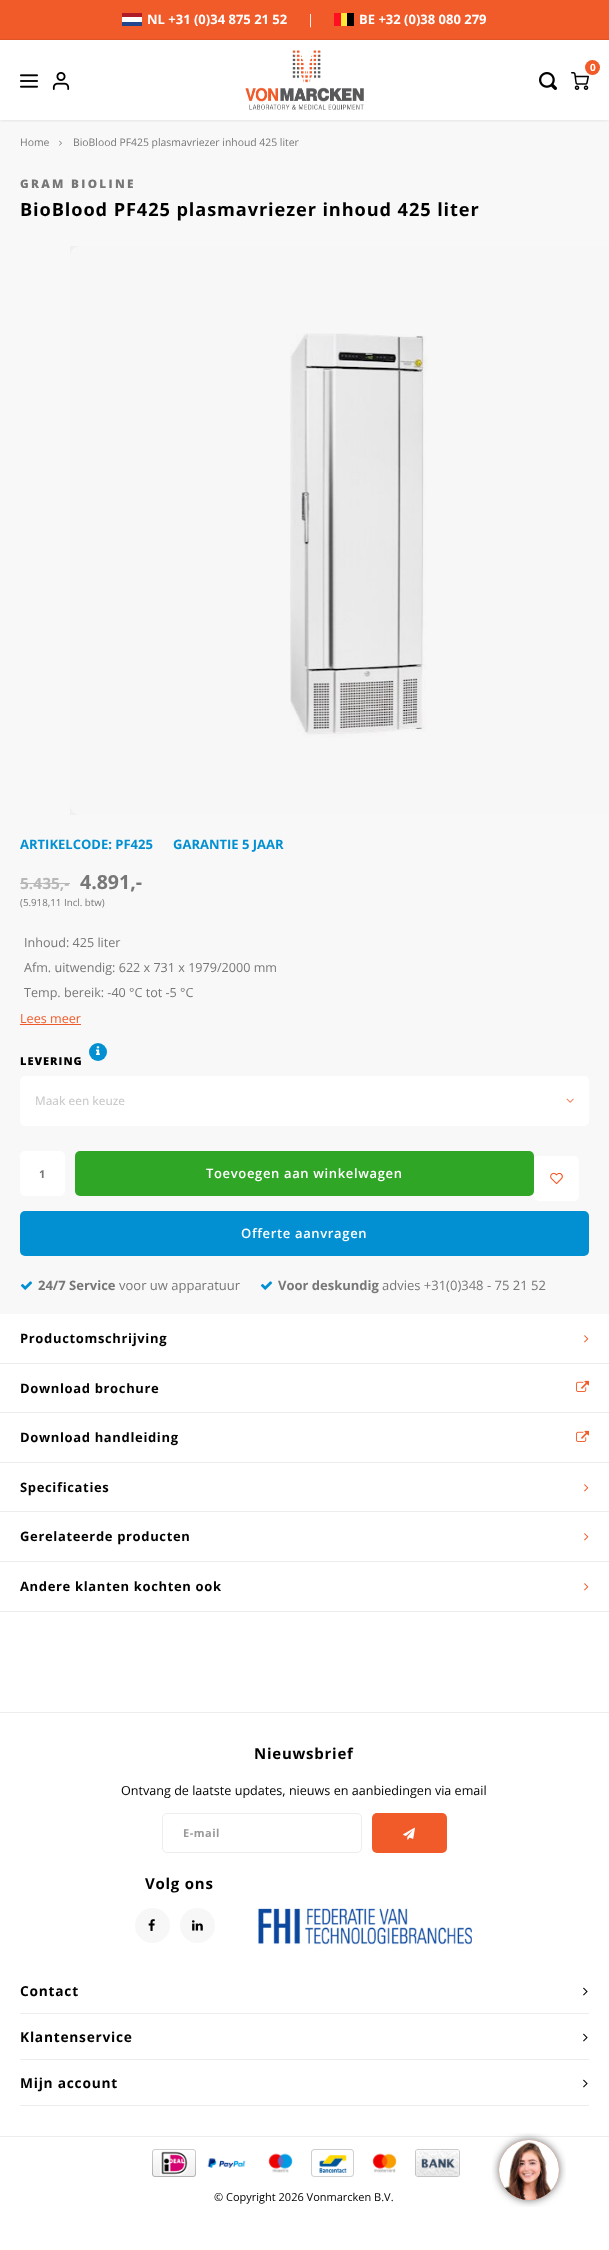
<svg xmlns="http://www.w3.org/2000/svg" xmlns:xlink="http://www.w3.org/1999/xlink" width="609" height="2250" viewBox="0 0 609 2250">
<style>
.cls-1{font:bold 13px Open Sans;fill:#ffffff}
.cls-2{font:13px Open Sans;fill:#ffffff}
.cls-3{font:bold 10px Open Sans;fill:#ffffff}
.cls-4{font:10.4px Open Sans;fill:#777777}
.cls-5{font:800 11.75px Open Sans;letter-spacing:2.3px;fill:#777777}
.cls-6{font:bold 18.2px Open Sans;letter-spacing:0.9px;fill:#000000}
.cls-7{font:bold 13px Open Sans;fill:#0290d2}
.cls-8{font:bold 15.5px Open Sans;fill:#b8b8b8}
.cls-9{font:bold 19.5px Open Sans;fill:#777777}
.cls-10{font:9.75px Open Sans;fill:#777777}
.cls-11{font:12.6px Open Sans;fill:#777777}
.cls-12{font:12.6px Open Sans;fill:#f15a29}
.cls-13{font:800 11px Open Sans;letter-spacing:1px;fill:#000000}
.cls-14{font:500 11.75px Open Sans;fill:#cacaca}
.cls-15{font:bold 11px Open Sans;letter-spacing:1px;fill:#777777}
.cls-16{font:600 13px Open Sans;letter-spacing:0.65px;fill:#ffffff}
.cls-17{font:bold 13px Open Sans;fill:#777777}
.cls-18{font:13px Open Sans;fill:#777777}
.cls-19{font:bold 13px Open Sans;letter-spacing:0.65px;fill:#000000}
.cls-20{font:bold 15px Open Sans;letter-spacing:0.75px;fill:#000000}
.cls-21{font:12.6px Open Sans;fill:#000000}
.cls-22{font:bold 11px Open Sans;letter-spacing:0.5px;fill:#999999}
.cls-23{font:bold 13.75px Open Sans;letter-spacing:0.75px;fill:#000000}
.cls-24{font:11px Open Sans;fill:#000000}
</style>
<defs>
<clipPath id="clip1"><rect x="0" y="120" width="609" height="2"/></clipPath>
</defs>
<rect width="100%" height="100%" fill="#ffffff"/>
<rect fill="#f8f8f8" x="0" y="120" width="609" height="1194"/>
<g clip-path="url(#clip1)">
<rect fill="#000000" fill-opacity="0.08" filter="blur(2px)" x="0" y="1" width="609" height="120"/>
</g>
<rect fill="#f15a29" x="0" y="0" width="609" height="39"/>
<rect fill="#e05426" x="0" y="39" width="609" height="1"/>
<rect fill="#21468b" x="122" y="22" width="20" height="4"/>
<rect fill="#ffffff" x="122" y="17" width="20" height="5"/>
<rect fill="#ae1c28" x="122" y="13" width="20" height="4"/>
<rect fill="#000000" x="347" y="13" width="7" height="13"/>
<rect fill="#ffe936" x="341" y="13" width="6" height="13"/>
<rect fill="#ff0f21" x="334" y="13" width="7" height="13"/>
<image xlink:href="image0.png" x="245" y="50" width="119" height="60"/>
<image xlink:href="image1.png" x="571" y="72" width="18" height="18"/>
<circle fill="#f15a29" cx="592.5" cy="67.5" r="7.5"/>
<image xlink:href="image2.png" x="539" y="72" width="18" height="18"/>
<image xlink:href="image3.png" x="20" y="74" width="18" height="14"/>
<image xlink:href="image4.png" x="52" y="72" width="18" height="18"/>
<image xlink:href="image5.png" x="59" y="140" width="3" height="6"/>
<rect fill="#ffffff" x="70" y="246" width="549" height="569" rx="10"/>
<image xlink:href="image6.png" x="290" y="333" width="138" height="404"/>
<rect fill="#000000" fill-opacity="0.03" x="70" y="246" width="539" height="569"/>
<rect fill="#b8b8b8" x="20" y="883" width="50" height="1"/>
<rect fill="#f15a29" x="20" y="1024" width="61" height="1"/>
<circle fill="#0290d2" cx="98" cy="1052" r="9"/>
<image xlink:href="image7.png" x="96" y="1046" width="4" height="9"/>
<rect fill="#ffffff" x="20" y="1076" width="569" height="50" rx="5"/>
<image xlink:href="image8.png" x="566" y="1098" width="8" height="5"/>
<rect fill="#ffffff" x="20" y="1151" width="45" height="45" rx="5"/>
<rect fill="#30a626" x="75" y="1151" width="459" height="45" rx="5"/>
<rect fill="#ffffff" x="534" y="1156" width="45" height="45" rx="5"/>
<image xlink:href="image9.png" x="550" y="1172" width="13" height="13"/>
<rect fill="#0290d2" x="20" y="1211" width="569" height="45" rx="5"/>
<image xlink:href="image10.png" x="20" y="1281" width="13" height="9"/>
<image xlink:href="image10.png" x="260" y="1281" width="13" height="9"/>
<rect fill="#ededed" x="0" y="1363" width="609" height="1"/>
<image xlink:href="image11.png" x="584" y="1335" width="5" height="8"/>
<rect fill="#ededed" x="0" y="1412" width="609" height="1"/>
<image xlink:href="image12.png" x="576" y="1380" width="13" height="12"/>
<rect fill="#ededed" x="0" y="1462" width="609" height="1"/>
<image xlink:href="image12.png" x="576" y="1430" width="13" height="12"/>
<rect fill="#ededed" x="0" y="1511" width="609" height="1"/>
<image xlink:href="image11.png" x="584" y="1484" width="5" height="8"/>
<rect fill="#ededed" x="0" y="1561" width="609" height="1"/>
<image xlink:href="image11.png" x="584" y="1533" width="5" height="8"/>
<rect fill="#ededed" x="0" y="1611" width="609" height="1"/>
<image xlink:href="image11.png" x="584" y="1583" width="5" height="8"/>
<rect fill="#ededed" x="0" y="1712" width="609" height="1"/>
<rect fill="none" stroke="#ededed" x="162.5" y="1813.5" width="199" height="39" rx="4.5"/>
<rect fill="#f15a29" x="372" y="1813" width="75" height="40" rx="5"/>
<image xlink:href="image13.png" x="403" y="1827" width="12" height="13"/>
<circle fill="#f7f7f7" cx="152.5" cy="1925.5" r="17.5"/>
<image xlink:href="image14.png" x="148" y="1919" width="7" height="12"/>
<circle fill="#f7f7f7" cx="197.5" cy="1925.5" r="17.5"/>
<image xlink:href="image15.png" x="192" y="1920" width="11" height="11"/>
<image xlink:href="image16.png" x="258" y="1908" width="214" height="37"/>
<rect fill="#ededed" x="20" y="2013" width="569" height="1"/>
<image xlink:href="image17.png" x="583" y="1987" width="5" height="9"/>
<rect fill="#ededed" x="20" y="2059" width="569" height="1"/>
<image xlink:href="image17.png" x="583" y="2033" width="5" height="9"/>
<rect fill="#ededed" x="20" y="2105" width="569" height="1"/>
<image xlink:href="image17.png" x="583" y="2079" width="5" height="9"/>
<rect fill="#ededed" x="0" y="2136" width="609" height="1"/>
<image xlink:href="image18.png" x="152" y="2149" width="44" height="28"/>
<image xlink:href="image19.png" x="207" y="2158" width="39" height="10"/>
<image xlink:href="image20.png" x="268" y="2153" width="25" height="20"/>
<image xlink:href="image21.png" x="311" y="2149" width="43" height="28"/>
<image xlink:href="image22.png" x="372" y="2153" width="25" height="20"/>
<image xlink:href="image23.png" x="415" y="2149" width="45" height="28"/>
<image xlink:href="image24.png" x="492" y="2133" width="74" height="74"/>
<text class="cls-1" x="147" y="24">NL +31 (0)34 875 21 52</text>
<text class="cls-2" x="307" y="24">|</text>
<text class="cls-1" x="359" y="24">BE +32 (0)38 080 279</text>
<text class="cls-3" x="590" y="71">0</text>
<text class="cls-4" x="20" y="146">Home</text>
<text class="cls-4" x="73" y="146">BioBlood PF425 plasmavriezer inhoud 425 liter</text>
<text class="cls-5" x="20" y="188">GRAM BIOLINE</text>
<text class="cls-6" x="20" y="216">BioBlood PF425 plasmavriezer inhoud 425 liter</text>
<text class="cls-7" x="20" y="849">ARTIKELCODE: PF425</text>
<text class="cls-7" x="173" y="849">GARANTIE 5 JAAR</text>
<text class="cls-8" x="20" y="889">5.435,-</text>
<text class="cls-9" x="80" y="889">4.891,-</text>
<text class="cls-10" x="20" y="906">(5.918,11 Incl. btw)</text>
<text class="cls-11"><tspan x="24" y="947">Inhoud: 425 liter</tspan><tspan x="24" y="972">Afm. uitwendig: 622 x 731 x 1979/2000 mm</tspan><tspan x="24" y="997">Temp. bereik: -40 °C tot -5 °C</tspan></text>
<text class="cls-12" x="20" y="1023">Lees meer</text>
<text class="cls-13" x="20" y="1065">LEVERING</text>
<text class="cls-14" x="35" y="1105">Maak een keuze</text>
<text class="cls-15" x="39" y="1178">1</text>
<text class="cls-16" x="206" y="1178">Toevoegen aan winkelwagen</text>
<text class="cls-16" x="241" y="1238">Offerte aanvragen</text>
<text class="cls-17" x="38" y="1290">24/7 Service</text>
<text class="cls-18" x="119" y="1290">voor uw apparatuur</text>
<text class="cls-17" x="278" y="1290">Voor deskundig</text>
<text class="cls-18" x="382" y="1290">advies +31(0)348 - 75 21 52</text>
<text class="cls-19" x="20" y="1343">Productomschrijving</text>
<text class="cls-19" x="20" y="1393">Download brochure</text>
<text class="cls-19" x="20" y="1442">Download handleiding</text>
<text class="cls-19" x="20" y="1492">Specificaties</text>
<text class="cls-19" x="20" y="1541">Gerelateerde producten</text>
<text class="cls-19" x="20" y="1591">Andere klanten kochten ook</text>
<text class="cls-20" x="254" y="1759">Nieuwsbrief</text>
<text class="cls-21" x="121" y="1795">Ontvang de laatste updates, nieuws en aanbiedingen via email</text>
<text class="cls-22" x="183" y="1837">E-mail</text>
<text class="cls-20" x="145" y="1889">Volg ons</text>
<text class="cls-23" x="20" y="1996">Contact</text>
<text class="cls-23" x="20" y="2042">Klantenservice</text>
<text class="cls-23" x="20" y="2088">Mijn account</text>
<text class="cls-24" x="214" y="2201">© Copyright 2026 Vonmarcken B.V.</text>
</svg>
